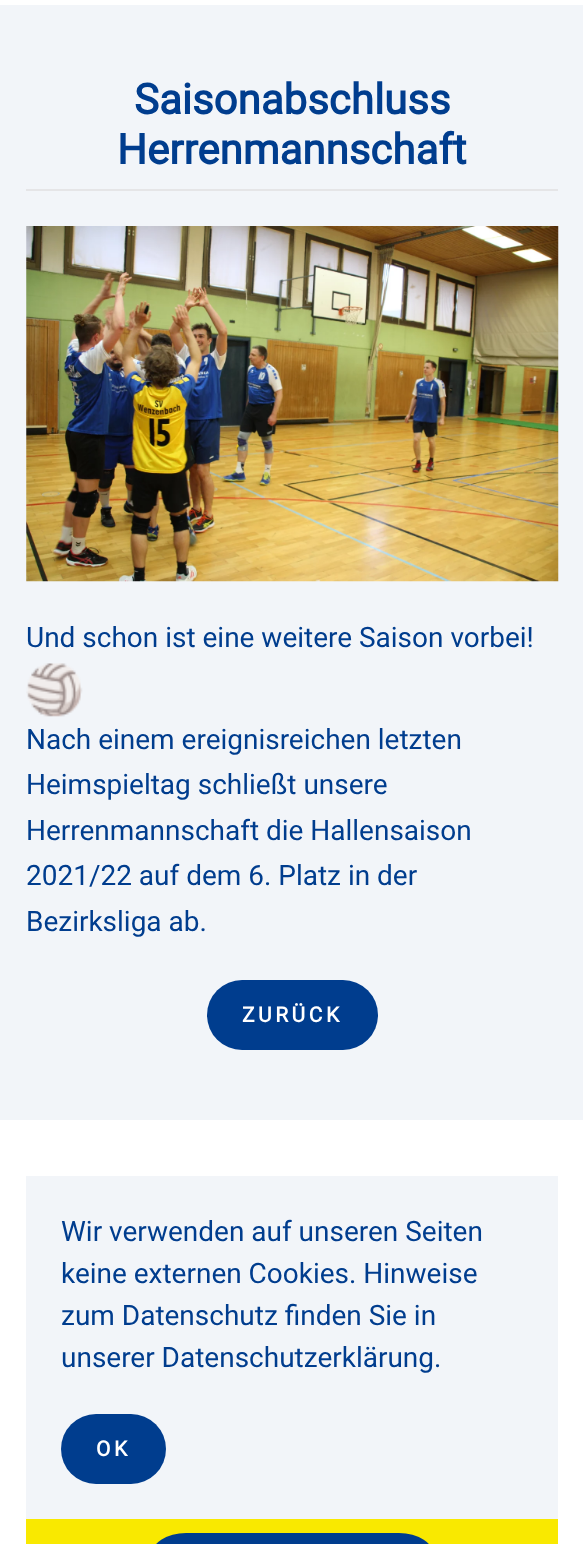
<svg xmlns="http://www.w3.org/2000/svg" xmlns:xlink="http://www.w3.org/1999/xlink" width="583" height="1544" viewBox="0 0 583 1544">
<style>
.cls-1{font:bold 42px Roboto;fill:#003d8e}
.cls-2{font:28px Roboto;fill:#003d8e}
.cls-3{font:bold 21px Roboto;letter-spacing:3.5px;fill:#ffffff}
</style>
<rect width="100%" height="100%" fill="#ffffff"/>
<rect fill="#f2f5f9" x="0" y="5" width="583" height="1115"/>
<rect fill="#e5e5e7" x="26" y="189" width="532" height="2"/>
<image xlink:href="image0.png" x="26" y="226" width="533" height="356"/>
<image xlink:href="image1.png" x="26" y="663" width="57" height="54"/>
<rect fill="#003d8e" x="207" y="980" width="171" height="70" rx="35"/>
<rect fill="#f9e900" x="26" y="1519" width="532" height="25"/>
<rect fill="#003d8e" x="151" y="1533" width="283" height="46" rx="35"/>
<rect fill="#f2f5f9" x="26" y="1176" width="532" height="343"/>
<rect fill="#003d8e" x="61" y="1414" width="105" height="70" rx="35"/>
<text class="cls-1" x="134" y="114">Saisonabschluss</text>
<text class="cls-1" x="117" y="164">Herrenmannschaft</text>
<text class="cls-2" x="26" y="647">Und schon ist eine weitere Saison vorbei!</text>
<text class="cls-2"><tspan x="26" y="749">Nach einem ereignisreichen letzten</tspan><tspan x="26" y="794">Heimspieltag schließt unsere</tspan><tspan x="26" y="840">Herrenmannschaft die Hallensaison</tspan><tspan x="26" y="885">2021/22 auf dem 6. Platz in der</tspan><tspan x="26" y="931">Bezirksliga ab.</tspan></text>
<text class="cls-3" x="242" y="1022">ZURÜCK</text>
<text class="cls-2"><tspan x="61" y="1241">Wir verwenden auf unseren Seiten</tspan><tspan x="61" y="1283">keine externen Cookies. Hinweise</tspan><tspan x="61" y="1325">zum Datenschutz finden Sie in</tspan><tspan x="61" y="1367">unserer Datenschutzerklärung.</tspan></text>
<text class="cls-3" x="96" y="1456">OK</text>
</svg>
